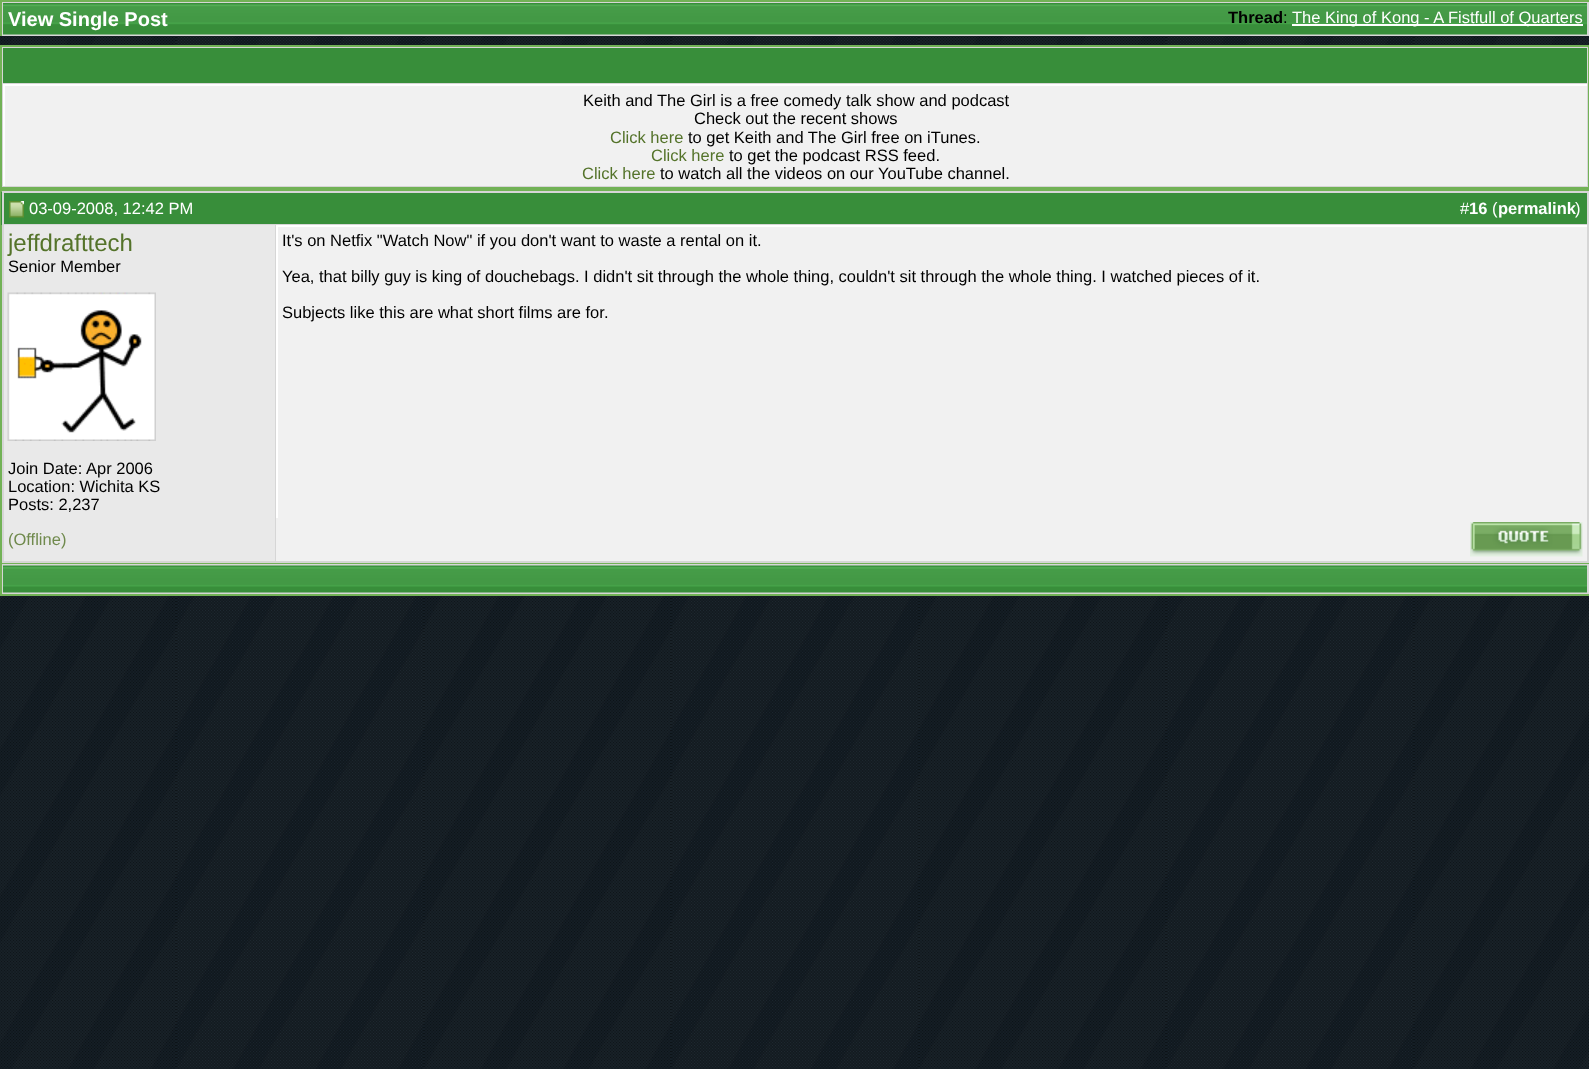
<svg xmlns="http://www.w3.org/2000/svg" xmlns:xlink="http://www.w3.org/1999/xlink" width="1589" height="1069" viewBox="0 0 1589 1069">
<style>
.cls-1{font:bold 20px Liberation Sans;fill:#ffffff}
.cls-2{font:bold 16.5px Liberation Sans;fill:#000000}
.cls-3{font:16.5px Liberation Sans;fill:#000000}
.cls-4{font:16.5px Liberation Sans;fill:#ffffff}
.cls-5{font:16.5px Liberation Sans;fill:#54732a}
.cls-6{font:bold 16.5px Liberation Sans;fill:#ffffff}
.cls-7{font:24px Liberation Sans;fill:#54732a}
.cls-8{font:16.5px Liberation Sans;fill:#708a4d}
</style>
<rect width="100%" height="100%" fill="#ffffff"/>
<image xlink:href="image0.png" x="0" y="36" width="1589" height="1033"/>
<rect fill="#d6d6d6" x="2" y="2" width="1587" height="34"/>
<rect fill="#72b256" x="0" y="0" width="1589" height="2"/>
<rect fill="#72b256" x="0" y="0" width="2" height="36"/>
<image xlink:href="image1.png" x="3" y="3" width="1584" height="32"/>
<rect fill="#ffffff" x="1292" y="24" width="291" height="2"/>
<rect fill="#d6d6d6" stroke="#72b256" stroke-width="2" x="1" y="46" width="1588" height="142"/>
<rect fill="#388e3a" x="3" y="48" width="1584" height="35"/>
<rect fill="#f1f1f1" x="5" y="86" width="1582" height="100"/>
<rect fill="#ffffff" x="3" y="84" width="1584" height="2"/>
<rect fill="#ffffff" x="3" y="84" width="2" height="102"/>
<rect fill="none" stroke="#72b256" stroke-width="2" x="1" y="190" width="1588" height="373"/>
<rect fill="#388e3a" x="1" y="192" width="275" height="33"/>
<rect fill="#d6d6d6" x="2" y="191" width="1587" height="2"/>
<rect fill="#d6d6d6" x="2" y="224" width="274" height="1"/>
<rect fill="#d6d6d6" x="2" y="191" width="2" height="327"/>
<image xlink:href="image2.png" x="9" y="201" width="15" height="17"/>
<rect fill="#388e3a" x="276" y="193" width="1311" height="31"/>
<rect fill="#d6d6d6" x="1587" y="191" width="2" height="34"/>
<rect fill="#d6d6d6" x="276" y="224" width="1313" height="1"/>
<rect fill="#e9e9e9" x="4" y="225" width="271" height="336"/>
<rect fill="#d6d6d6" x="275" y="225" width="1" height="338"/>
<image xlink:href="image3.png" x="7" y="292" width="149" height="149"/>
<rect fill="#f1f1f1" x="278" y="227" width="1309" height="291"/>
<rect fill="#ffffff" x="276" y="225" width="1313" height="2"/>
<rect fill="#d6d6d6" x="1587" y="225" width="2" height="338"/>
<rect fill="#ffffff" x="276" y="225" width="2" height="293"/>
<rect fill="#d6d6d6" x="2" y="561" width="1587" height="2"/>
<rect fill="#d6d6d6" x="2" y="518" width="2" height="45"/>
<rect fill="#f1f1f1" x="276" y="518" width="1311" height="43"/>
<image xlink:href="image4.png" x="1470" y="522" width="113" height="35"/>
<rect fill="#d6d6d6" x="2" y="564" width="1587" height="30"/>
<rect fill="#72b256" x="0" y="594" width="1589" height="2"/>
<rect fill="#72b256" x="0" y="564" width="2" height="32"/>
<image xlink:href="image5.png" x="3" y="565" width="1584" height="28"/>
<text class="cls-1" x="8" y="26">View Single Post</text>
<text class="cls-2" x="1228" y="23">Thread</text>
<text class="cls-3" x="1283" y="23">:</text>
<text class="cls-4" x="1292" y="23">The King of Kong - A Fistfull of Quarters</text>
<text class="cls-3" x="583" y="106">Keith and The Girl is a free comedy talk show and podcast</text>
<text class="cls-3" x="694" y="124">Check out the recent shows</text>
<text class="cls-5" x="610" y="143">Click here</text>
<text class="cls-3" x="688" y="143">to get Keith and The Girl free on iTunes.</text>
<text class="cls-5" x="651" y="161">Click here</text>
<text class="cls-3" x="729" y="161">to get the podcast RSS feed.</text>
<text class="cls-5" x="582" y="179">Click here</text>
<text class="cls-3" x="660" y="179">to watch all the videos on our YouTube channel.</text>
<text class="cls-4" x="29" y="214">03-09-2008, 12:42 PM</text>
<text class="cls-4" x="1460" y="214">#</text>
<text class="cls-6" x="1469" y="214">16</text>
<text class="cls-4" x="1492" y="214">(</text>
<text class="cls-6" x="1498" y="214">permalink</text>
<text class="cls-4" x="1575" y="214">)</text>
<text class="cls-7" x="8" y="251">jeffdrafttech</text>
<text class="cls-3" x="8" y="272">Senior Member</text>
<text class="cls-3"><tspan x="8" y="474">Join Date: Apr 2006</tspan><tspan x="8" y="492">Location: Wichita KS</tspan><tspan x="8" y="510">Posts: 2,237</tspan></text>
<text class="cls-3" x="282" y="246">It's on Netfix "Watch Now" if you don't want to waste a rental on it.</text>
<text class="cls-3" x="282" y="282">Yea, that billy guy is king of douchebags. I didn't sit through the whole thing, couldn't sit through the whole thing. I watched pieces of it.</text>
<text class="cls-3" x="282" y="318">Subjects like this are what short films are for.</text>
<text class="cls-8" x="8" y="545">(Offline)</text>
</svg>
